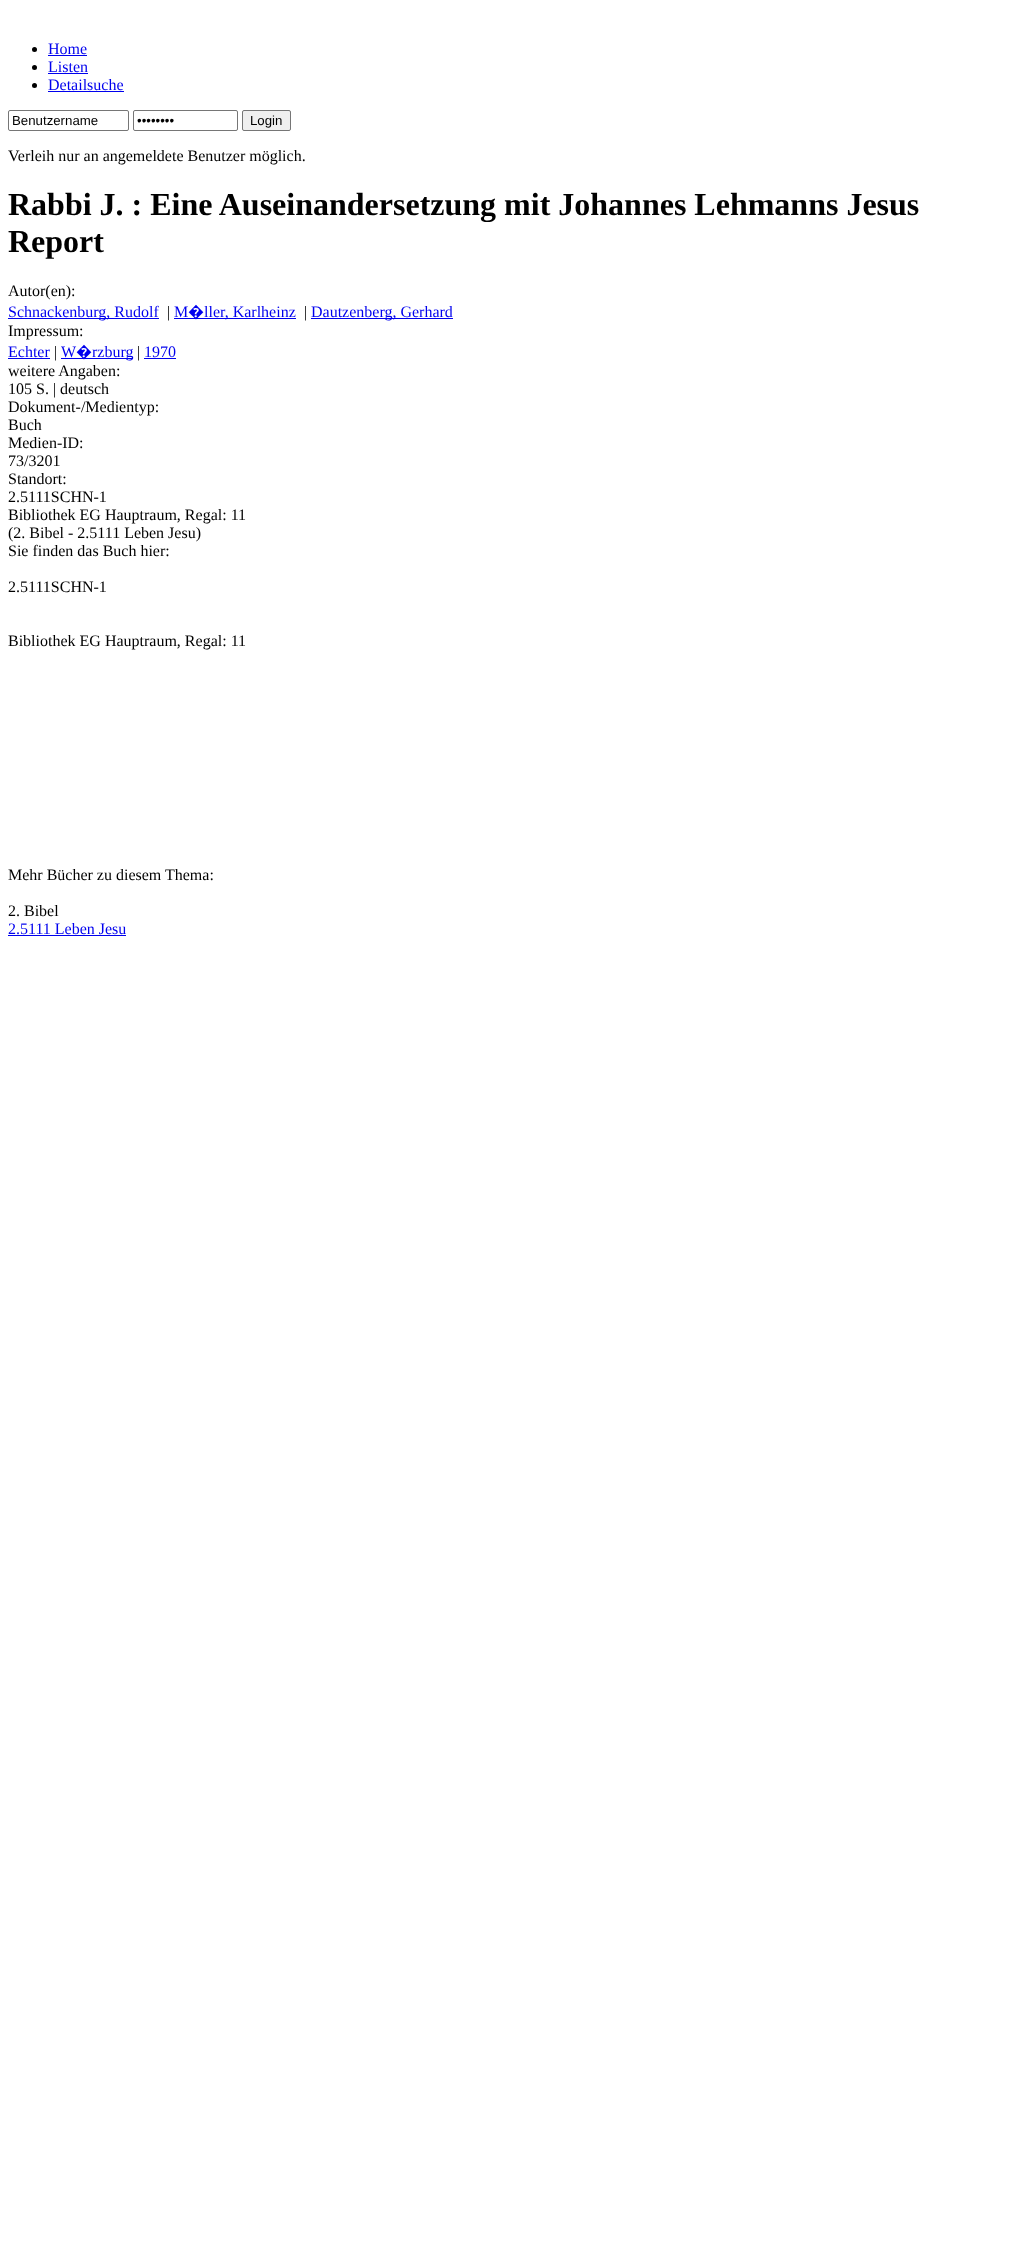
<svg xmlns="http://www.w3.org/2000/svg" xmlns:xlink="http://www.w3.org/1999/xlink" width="1025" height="2243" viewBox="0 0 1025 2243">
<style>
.cls-1{font:16px Liberation Serif;fill:#0000ee}
.cls-2{font:13.25px Liberation Sans;fill:#000000}
.cls-3{font:16px Liberation Serif;fill:#000000}
.cls-4{font:bold 32px Liberation Serif;fill:#000000}
.cls-5{font:16px Noto Sans;fill:#0000ee}
</style>
<rect width="100%" height="100%" fill="#ffffff"/>
<circle fill="#000000" cx="34.5" cy="49.5" r="2.5"/>
<rect fill="#0000ee" x="48" y="55" width="39" height="1"/>
<circle fill="#000000" cx="34.5" cy="67.5" r="2.5"/>
<rect fill="#0000ee" x="48" y="73" width="40" height="1"/>
<circle fill="#000000" cx="34.5" cy="85.5" r="2.5"/>
<rect fill="#0000ee" x="48" y="91" width="76" height="1"/>
<rect fill="none" stroke="#767676" x="8.5" y="110.5" width="120" height="20" rx="1.5"/>
<rect fill="none" stroke="#767676" x="133.5" y="110.5" width="104" height="20" rx="1.5"/>
<rect fill="#efefef" stroke="#767676" x="242.5" y="110.5" width="48" height="20" rx="1.5"/>
<rect fill="#0000ee" x="8" y="318" width="151" height="1"/>
<rect fill="#0000ee" x="174" y="318" width="122" height="1"/>
<rect fill="#0000ee" x="311" y="318" width="142" height="1"/>
<rect fill="#0000ee" x="8" y="358" width="42" height="1"/>
<rect fill="#0000ee" x="61" y="358" width="72" height="1"/>
<rect fill="#0000ee" x="144" y="358" width="32" height="1"/>
<rect fill="#0000ee" x="8" y="935" width="118" height="1"/>
<text class="cls-1"><tspan x="48" y="54">Home</tspan><tspan x="48" y="72">Listen</tspan><tspan x="48" y="90">Detailsuche</tspan></text>
<text class="cls-2" x="12" y="125">Benutzername</text>
<text class="cls-2" x="137" y="125">••••••••</text>
<text class="cls-2" x="250" y="125">Login</text>
<text class="cls-3" x="8" y="161">Verleih nur an angemeldete Benutzer möglich.</text>
<text class="cls-4"><tspan x="8" y="215">Rabbi J. : Eine Auseinandersetzung mit Johannes Lehmanns Jesus</tspan><tspan x="8" y="252">Report</tspan></text>
<text class="cls-3" x="8" y="296">Autor(en):</text>
<text class="cls-1" x="8" y="317">Schnackenburg, Rudolf</text>
<text class="cls-3" x="167" y="317">|</text>
<text class="cls-1" x="174" y="317">M</text>
<text class="cls-5" x="188" y="317">�</text>
<text class="cls-1" x="204" y="317">ller, Karlheinz</text>
<text class="cls-3" x="304" y="317">|</text>
<text class="cls-1" x="311" y="317">Dautzenberg, Gerhard</text>
<text class="cls-3" x="8" y="336">Impressum:</text>
<text class="cls-1" x="8" y="357">Echter</text>
<text class="cls-3" x="54" y="357">|</text>
<text class="cls-1" x="61" y="357">W</text>
<text class="cls-5" x="76" y="357">�</text>
<text class="cls-1" x="92" y="357">rzburg</text>
<text class="cls-3" x="137" y="357">|</text>
<text class="cls-1" x="144" y="357">1970</text>
<text class="cls-3"><tspan x="8" y="376">weitere Angaben:</tspan><tspan x="8" y="394">105 S. | deutsch</tspan><tspan x="8" y="412">Dokument-/Medientyp:</tspan><tspan x="8" y="430">Buch</tspan><tspan x="8" y="448">Medien-ID:</tspan><tspan x="8" y="466">73/3201</tspan><tspan x="8" y="484">Standort:</tspan><tspan x="8" y="502">2.5111SCHN-1</tspan><tspan x="8" y="520">Bibliothek EG Hauptraum, Regal: 11</tspan><tspan x="8" y="538">(2. Bibel - 2.5111 Leben Jesu)</tspan><tspan x="8" y="556">Sie finden das Buch hier:</tspan></text>
<text class="cls-3" x="8" y="592">2.5111SCHN-1</text>
<text class="cls-3" x="8" y="646">Bibliothek EG Hauptraum, Regal: 11</text>
<text class="cls-3" x="8" y="880">Mehr Bücher zu diesem Thema:</text>
<text class="cls-3" x="8" y="916">2. Bibel</text>
<text class="cls-1" x="8" y="934">2.5111 Leben Jesu</text>
</svg>
